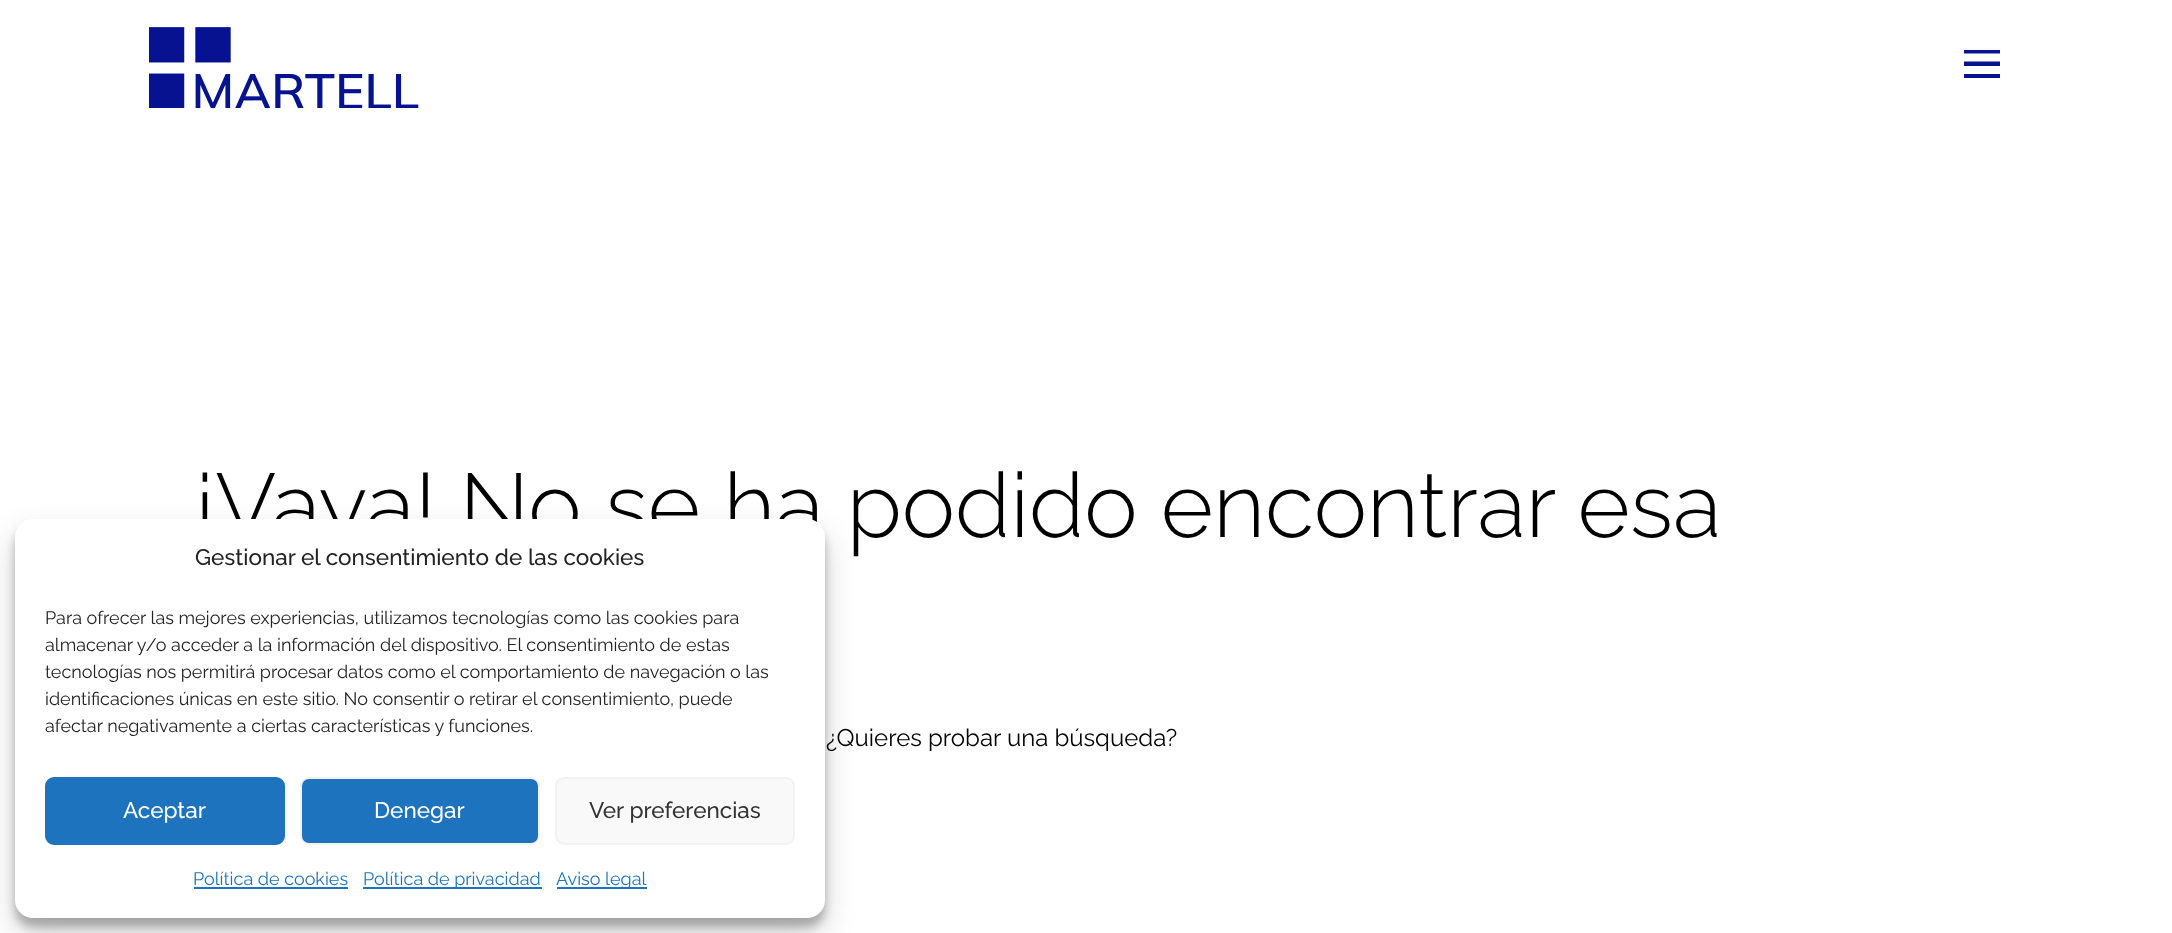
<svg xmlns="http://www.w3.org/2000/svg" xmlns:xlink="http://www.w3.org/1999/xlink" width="2172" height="933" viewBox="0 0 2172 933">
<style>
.cls-1{font:300 90px Raleway;fill:#000000}
.cls-2{font:24px Raleway;fill:#000000}
.cls-3{font:500 22.5px Raleway;fill:#222222}
.cls-4{font:18px Raleway;fill:#222222}
.cls-5{font:500 22.5px Raleway;fill:#ffffff}
.cls-6{font:500 22.5px Raleway;fill:#333333}
.cls-7{font:18px Raleway;fill:#1e73be}
</style>
<defs>
<clipPath id="clip1"><rect x="1964" y="50" width="36" height="28"/></clipPath>
</defs>
<rect width="100%" height="100%" fill="#ffffff"/>
<image xlink:href="image0.png" x="149" y="27" width="270" height="81"/>
<g clip-path="url(#clip1)">
<path fill="#061290" d="M1963.5 49.5V53.5H2000V49.5ZM1963.5 66H2000V61.5H1963.5ZM1963.5 78H2000V74H1963.5Z"/>
</g>
<rect fill="#000000" fill-opacity="0.23" filter="blur(4.5px)" x="15" y="528" width="810" height="399" rx="18"/>
<rect fill="#000000" fill-opacity="0.19" filter="blur(15px)" x="15" y="534" width="810" height="399" rx="18"/>
<text class="cls-1" x="194" y="537">¡Vaya! No se ha podido encontrar esa</text>
<text class="cls-2" x="826" y="746">¿Quieres probar una búsqueda?</text>
<rect fill="#ffffff" x="15" y="519" width="810" height="399" rx="18"/>
<text class="cls-3" x="195" y="565">Gestionar el consentimiento de las cookies</text>
<text class="cls-4"><tspan x="45" y="624">Para ofrecer las mejores experiencias, utilizamos tecnologías como las cookies para</tspan><tspan x="45" y="651">almacenar y/o acceder a la información del dispositivo. El consentimiento de estas</tspan><tspan x="45" y="678">tecnologías nos permitirá procesar datos como el comportamiento de navegación o las</tspan><tspan x="45" y="705">identificaciones únicas en este sitio. No consentir o retirar el consentimiento, puede</tspan><tspan x="45" y="732">afectar negativamente a ciertas características y funciones.</tspan></text>
<rect fill="#1e73be" stroke="#1e73be" stroke-width="2" x="46" y="778" width="238" height="66" rx="8"/>
<text class="cls-5" x="123" y="818">Aceptar</text>
<rect fill="#1e73be" stroke="#f2f2f2" stroke-width="2" x="301" y="778" width="238" height="66" rx="8"/>
<text class="cls-5" x="374" y="818">Denegar</text>
<rect fill="#f9f9f9" stroke="#f2f2f2" stroke-width="2" x="556" y="778" width="238" height="66" rx="8"/>
<text class="cls-6" x="589" y="818">Ver preferencias</text>
<text class="cls-7" x="193" y="885">Política de cookies</text>
<rect fill="#1e73be" x="194" y="887" width="154" height="2"/>
<rect fill="#1e73be" x="363" y="887" width="179" height="2"/>
<text class="cls-7" x="363" y="885">Política de privacidad</text>
<rect fill="#1e73be" x="557" y="887" width="90" height="2"/>
<text class="cls-7" x="556" y="885">Aviso legal</text>
</svg>
